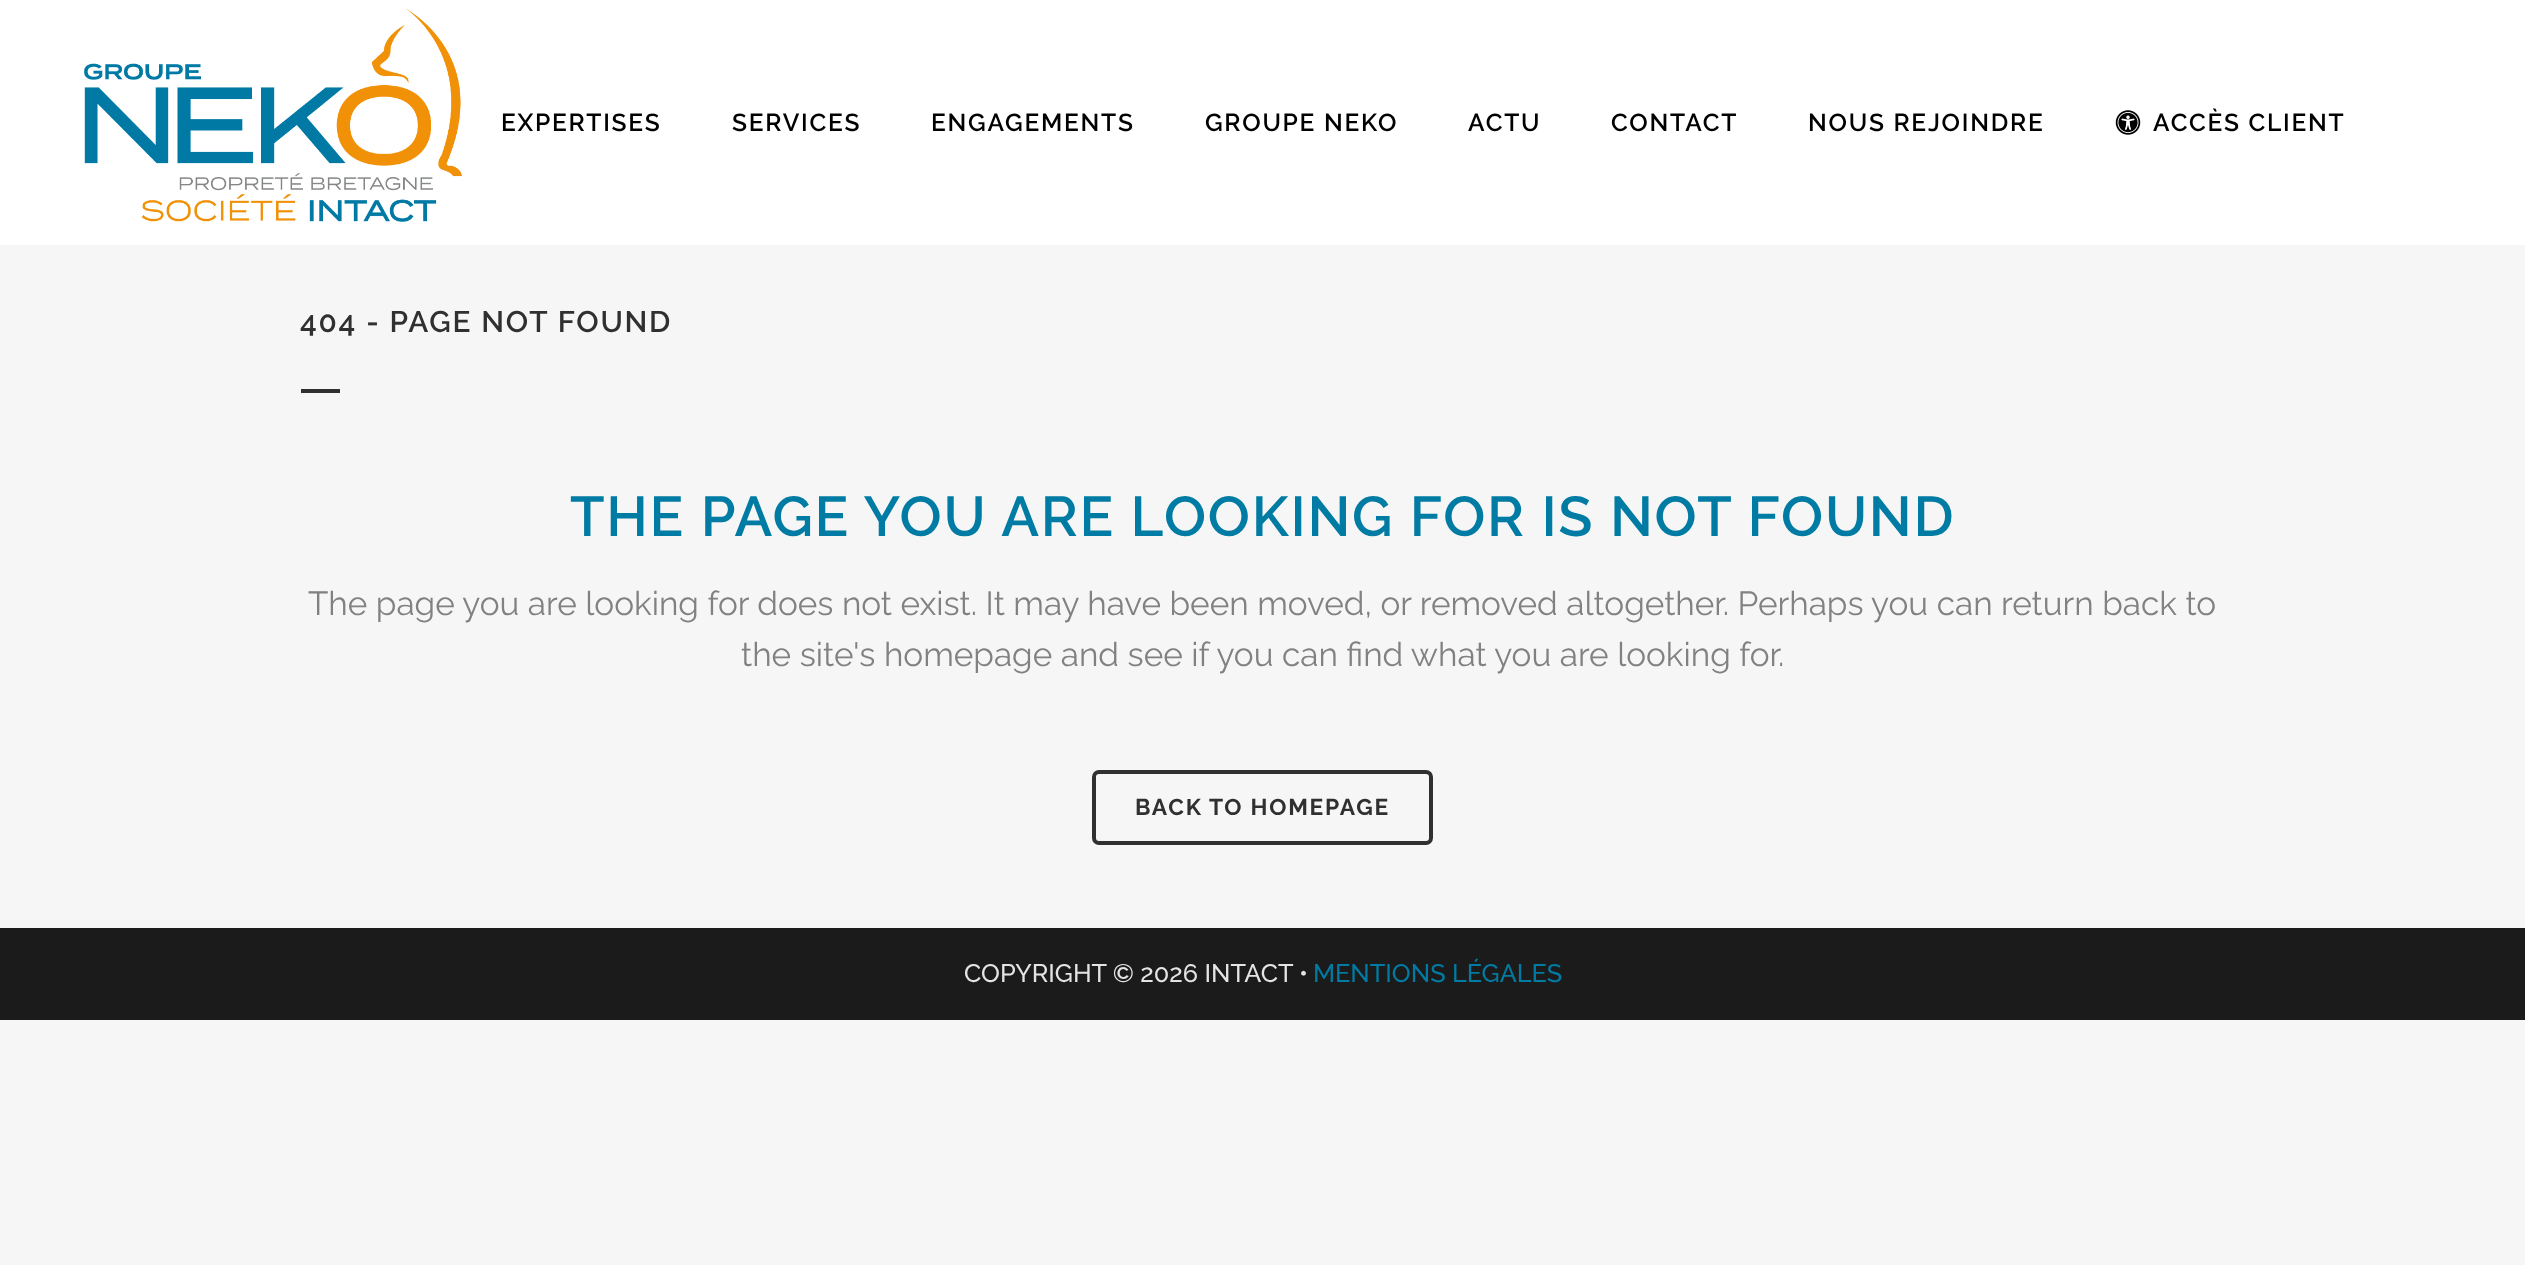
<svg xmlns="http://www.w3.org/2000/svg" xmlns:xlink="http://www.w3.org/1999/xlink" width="2525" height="1265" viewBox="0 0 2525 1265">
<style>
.cls-1{font:600 24.5px Raleway;letter-spacing:1.75px;fill:#000000}
.cls-2{font:600 29.75px Raleway;letter-spacing:1.75px;fill:#303030}
.cls-3{font:600 56px Raleway;letter-spacing:1.75px;fill:#007ba3}
.cls-4{font:33.35px Raleway;fill:#818181}
.cls-5{font:bold 22.75px Raleway;letter-spacing:1.75px;fill:#303030}
.cls-6{font:500 25.25px Raleway;fill:#e4e4e4}
.cls-7{font:500 25.25px Raleway;fill:#007ba3}
</style>
<rect width="100%" height="100%" fill="#f6f6f6"/>
<rect fill="#ffffff" x="0" y="0" width="2525" height="245"/>
<image xlink:href="image0.png" x="84" y="9" width="378" height="213"/>
<image xlink:href="image1.png" x="2115" y="110" width="26" height="25"/>
<rect fill="#303030" x="301" y="389" width="39" height="4"/>
<rect fill="none" stroke="#303030" stroke-width="4" x="1094" y="772" width="337" height="71" rx="5"/>
<rect fill="#1b1b1b" x="0" y="928" width="2525" height="92"/>
<text class="cls-1" x="501" y="131">EXPERTISES</text>
<text class="cls-1" x="732" y="131">SERVICES</text>
<text class="cls-1" x="931" y="131">ENGAGEMENTS</text>
<text class="cls-1" x="1205" y="131">GROUPE NEKO</text>
<text class="cls-1" x="1468" y="131">ACTU</text>
<text class="cls-1" x="1611" y="131">CONTACT</text>
<text class="cls-1" x="1808" y="131">NOUS REJOINDRE</text>
<text class="cls-1" x="2153" y="131">ACCÈS CLIENT</text>
<text class="cls-2" x="300" y="332">404 - PAGE NOT FOUND</text>
<text class="cls-3" x="570" y="536">THE PAGE YOU ARE LOOKING FOR IS NOT FOUND</text>
<text class="cls-4" x="308" y="615">The page you are looking for does not exist. It may have been moved, or removed altogether. Perhaps you can return back to</text>
<text class="cls-4" x="741" y="666">the site's homepage and see if you can find what you are looking for.</text>
<text class="cls-5" x="1135" y="815">BACK TO HOMEPAGE</text>
<text class="cls-6" x="964" y="982">COPYRIGHT © 2026 INTACT •</text>
<text class="cls-7" x="1313" y="982">MENTIONS LÉGALES</text>
</svg>
